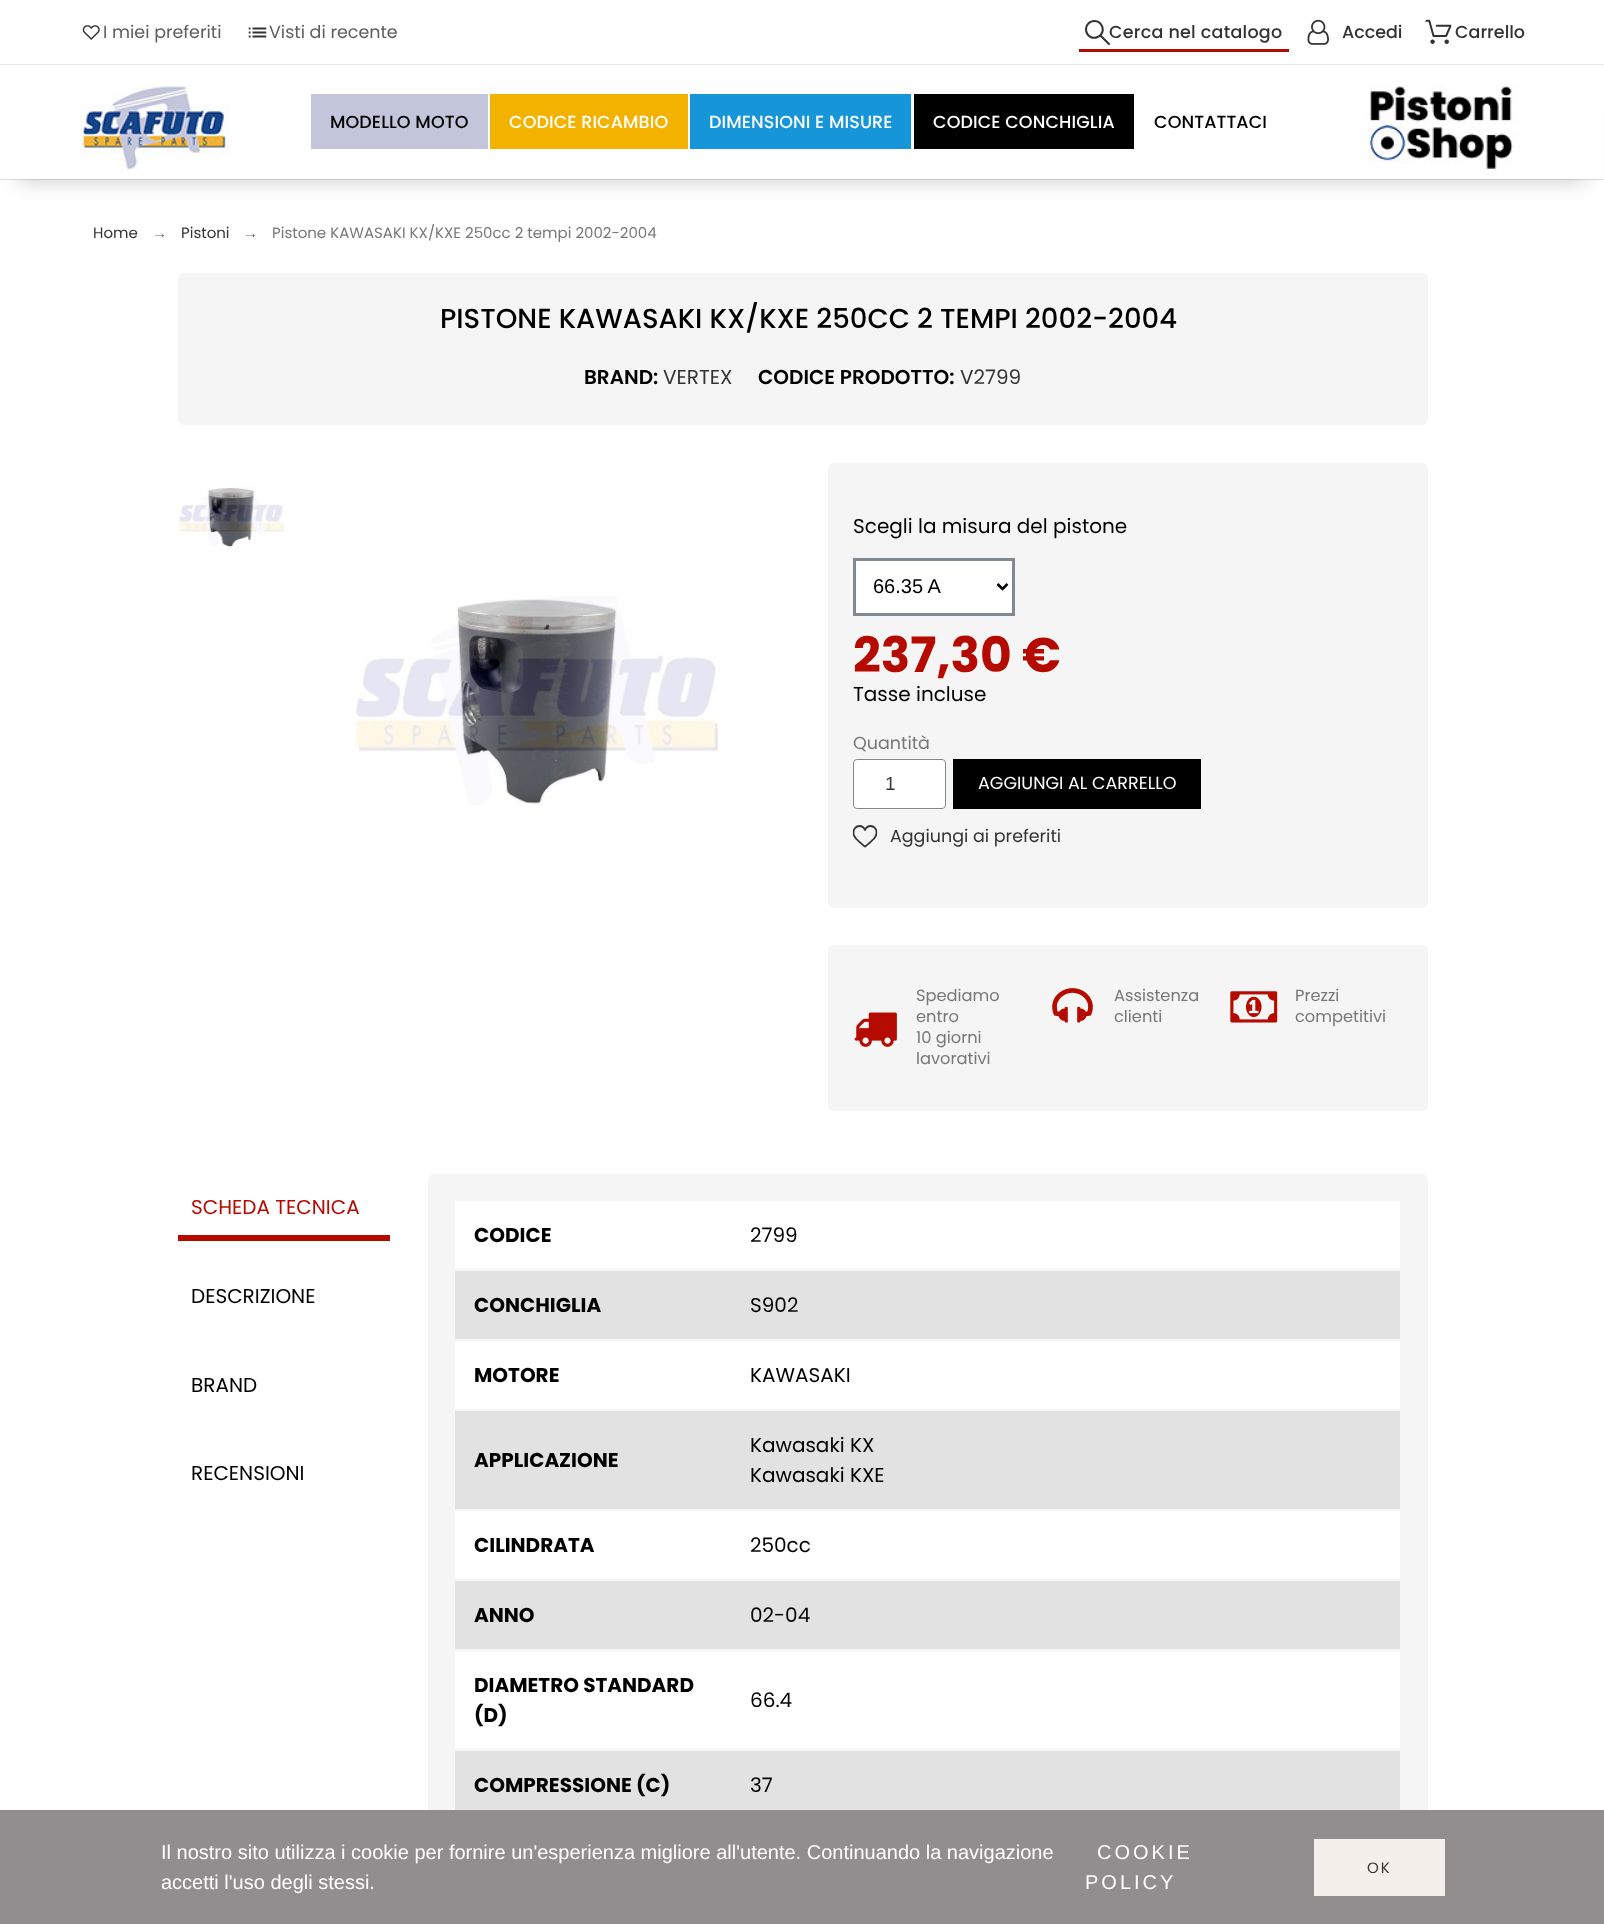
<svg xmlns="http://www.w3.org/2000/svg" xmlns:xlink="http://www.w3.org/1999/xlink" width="1604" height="1924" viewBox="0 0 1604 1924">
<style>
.cls-1{font:17.5px Poppins;fill:#5e5e5e}
.cls-2{font:500 17.5px Poppins;letter-spacing:0.25px;fill:#333333}
.cls-3{font:500 17.5px Poppins;fill:#333333}
.cls-4{font:500 17.5px Poppins;letter-spacing:0.1px;fill:#000000}
.cls-5{font:500 17.5px Poppins;letter-spacing:0.1px;fill:#ffffff}
.cls-6{font:15px Poppins;fill:#333333}
.cls-7{font:15px Liberation Serif;fill:#666666}
.cls-8{font:15px Poppins;fill:#777777}
.cls-9{font:500 27.5px Poppins;fill:#000000}
.cls-10{font:600 20px Poppins;fill:#000000}
.cls-11{font:20px Poppins;fill:#333333}
.cls-12{font:20px Poppins;fill:#000000}
.cls-13{font:20px Liberation Sans;fill:#000000}
.cls-14{font:bold 48.75px Poppins;fill:#b50a00}
.cls-15{font:17.5px Poppins;fill:#777777}
.cls-16{font:19px Liberation Sans;fill:#373a3c}
.cls-17{font:17.5px Poppins;fill:#ffffff}
.cls-18{font:17.5px Poppins;fill:#333333}
.cls-19{font:16.25px Poppins;fill:#777777}
.cls-20{font:20px Poppins;fill:#b50a00}
.cls-21{font:bold 20px Poppins;fill:#000000}
.cls-22{font:20px Liberation Sans;fill:#ffffff}
.cls-23{font:20px Liberation Sans;letter-spacing:3px;fill:#ffffff}
.cls-24{font:15px Poppins;letter-spacing:2px;fill:#333333}
</style>
<rect width="100%" height="100%" fill="#ffffff"/>
<rect fill="#e1e1e1" x="0" y="179" width="1604" height="1"/>
<rect fill="#eaeaea" x="0" y="64" width="1604" height="1"/>
<image xlink:href="image0.png" x="82" y="25" width="18" height="15"/>
<image xlink:href="image1.png" x="248" y="27" width="19" height="11"/>
<image xlink:href="image2.png" x="1085" y="20" width="25" height="25"/>
<rect fill="#b50a00" x="1079" y="49" width="210" height="3"/>
<image xlink:href="image3.png" x="1307" y="19" width="22" height="26"/>
<image xlink:href="image4.png" x="1425" y="19" width="27" height="25"/>
<rect fill="#000000" fill-opacity="0.2" filter="blur(10px)" x="19" y="105" width="1567" height="76"/>
<rect fill="#ffffff" x="3" y="89" width="1599" height="90"/>
<image xlink:href="image5.png" x="80" y="84" width="149" height="87"/>
<rect fill="#c3c5da" x="311" y="94" width="177" height="55"/>
<rect fill="#f3b200" x="490" y="94" width="198" height="55"/>
<rect fill="#1695d8" x="690" y="94" width="221" height="55"/>
<rect fill="#000000" x="914" y="94" width="220" height="55"/>
<image xlink:href="image6.png" x="1366" y="84" width="149" height="85"/>
<rect fill="#f5f5f5" x="178" y="273" width="1250" height="152" rx="6"/>
<image xlink:href="image7.png" x="179" y="487" width="105" height="60"/>
<image xlink:href="image8.png" x="354" y="596" width="366" height="209"/>
<rect fill="#f5f5f5" x="828" y="463" width="600" height="445" rx="6"/>
<rect fill="#ffffff" stroke="#818a91" stroke-width="3" x="854.5" y="559.5" width="159" height="55"/>
<path fill="none" stroke="#000000" stroke-width="2.5" d="M997.5 584L1002.5 589L1007.5 584"/>
<rect fill="#ffffff" stroke="#818a91" x="853.5" y="759.5" width="92" height="49" rx="3.5"/>
<rect fill="#000000" x="953" y="759" width="248" height="50"/>
<image xlink:href="image9.png" x="852" y="825" width="26" height="23"/>
<rect fill="#f5f5f5" x="828" y="945" width="600" height="166" rx="6"/>
<image xlink:href="image10.png" x="854" y="1012" width="43" height="35"/>
<image xlink:href="image11.png" x="1052" y="988" width="41" height="35"/>
<image xlink:href="image12.png" x="1230" y="991" width="48" height="32"/>
<rect fill="#b50a00" x="178" y="1235" width="212" height="6"/>
<rect fill="#f5f5f5" x="428" y="1174" width="1000" height="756" rx="6"/>
<rect fill="#ffffff" x="455" y="1201" width="945" height="68"/>
<rect fill="#e2e2e2" x="455" y="1271" width="945" height="68"/>
<rect fill="#ffffff" x="455" y="1341" width="945" height="68"/>
<rect fill="#e2e2e2" x="455" y="1411" width="945" height="98"/>
<rect fill="#ffffff" x="455" y="1511" width="945" height="68"/>
<rect fill="#e2e2e2" x="455" y="1581" width="945" height="68"/>
<rect fill="#ffffff" x="455" y="1651" width="945" height="98"/>
<rect fill="#e2e2e2" x="455" y="1751" width="945" height="59"/>
<rect fill="#908e8f" x="0" y="1810" width="1604" height="114"/>
<rect fill="#f4efeb" x="1314" y="1839" width="131" height="57"/>
<text class="cls-1" x="103" y="38">I miei preferiti</text>
<text class="cls-1" x="269" y="38">Visti di recente</text>
<text class="cls-2" x="1109" y="38">Cerca nel catalogo</text>
<text class="cls-3" x="1342" y="38">Accedi</text>
<text class="cls-3" x="1455" y="38">Carrello</text>
<text class="cls-4" x="330" y="128">MODELLO MOTO</text>
<text class="cls-5" x="509" y="128">CODICE RICAMBIO</text>
<text class="cls-5" x="709" y="128">DIMENSIONI E MISURE</text>
<text class="cls-5" x="933" y="128">CODICE CONCHIGLIA</text>
<text class="cls-4" x="1154" y="128">CONTATTACI</text>
<text class="cls-6" x="93" y="238">Home</text>
<text class="cls-7" x="152" y="238">→</text>
<text class="cls-6" x="181" y="238">Pistoni</text>
<text class="cls-7" x="243" y="238">→</text>
<text class="cls-8" x="272" y="238">Pistone KAWASAKI KX/KXE 250cc 2 tempi 2002-2004</text>
<text class="cls-9" x="440" y="328">PISTONE KAWASAKI KX/KXE 250CC 2 TEMPI 2002-2004</text>
<text class="cls-10" x="584" y="384">BRAND:</text>
<text class="cls-11" x="663" y="384">VERTEX</text>
<text class="cls-10" x="758" y="384">CODICE PRODOTTO:</text>
<text class="cls-11" x="960" y="384">V2799</text>
<text class="cls-12" x="853" y="533">Scegli la misura del pistone</text>
<text class="cls-13" x="873" y="593">66.35 A</text>
<text class="cls-14" x="853" y="672">237,30 €</text>
<text class="cls-12" x="853" y="701">Tasse incluse</text>
<text class="cls-15" x="853" y="749">Quantità</text>
<text class="cls-16" x="885" y="790">1</text>
<text class="cls-17" x="978" y="789">AGGIUNGI AL CARRELLO</text>
<text class="cls-18" x="890" y="842">Aggiungi ai preferiti</text>
<text class="cls-19"><tspan x="916" y="1001">Spediamo</tspan><tspan x="916" y="1022">entro</tspan><tspan x="916" y="1043">10 giorni</tspan><tspan x="916" y="1064">lavorativi</tspan></text>
<text class="cls-19"><tspan x="1114" y="1001">Assistenza</tspan><tspan x="1114" y="1022">clienti</tspan></text>
<text class="cls-19"><tspan x="1295" y="1001">Prezzi</tspan><tspan x="1295" y="1022">competitivi</tspan></text>
<text class="cls-20" x="191" y="1214">SCHEDA TECNICA</text>
<text class="cls-12" x="191" y="1303">DESCRIZIONE</text>
<text class="cls-12" x="191" y="1392">BRAND</text>
<text class="cls-12" x="191" y="1480">RECENSIONI</text>
<text class="cls-21" x="474" y="1242">CODICE</text>
<text class="cls-12" x="750" y="1242">2799</text>
<text class="cls-21" x="474" y="1312">CONCHIGLIA</text>
<text class="cls-12" x="750" y="1312">S902</text>
<text class="cls-21" x="474" y="1382">MOTORE</text>
<text class="cls-12" x="750" y="1382">KAWASAKI</text>
<text class="cls-21" x="474" y="1467">APPLICAZIONE</text>
<text class="cls-12"><tspan x="750" y="1452">Kawasaki KX</tspan><tspan x="750" y="1482">Kawasaki KXE</tspan></text>
<text class="cls-21" x="474" y="1552">CILINDRATA</text>
<text class="cls-12" x="750" y="1552">250cc</text>
<text class="cls-21" x="474" y="1622">ANNO</text>
<text class="cls-12" x="750" y="1622">02-04</text>
<text class="cls-21"><tspan x="474" y="1692">DIAMETRO STANDARD</tspan><tspan x="474" y="1722">(D)</tspan></text>
<text class="cls-12" x="750" y="1707">66.4</text>
<text class="cls-21" x="474" y="1792">COMPRESSIONE (C)</text>
<text class="cls-12" x="750" y="1792">37</text>
<text class="cls-22"><tspan x="161" y="1859">Il nostro sito utilizza i cookie per fornire un'esperienza migliore all'utente. Continuando la navigazione</tspan><tspan x="161" y="1889">accetti l'uso degli stessi.</tspan></text>
<text class="cls-23" x="1097" y="1859">COOKIE</text>
<text class="cls-23" x="1085" y="1889">POLICY</text>
<text class="cls-24" x="1367" y="1873">OK</text>
</svg>
